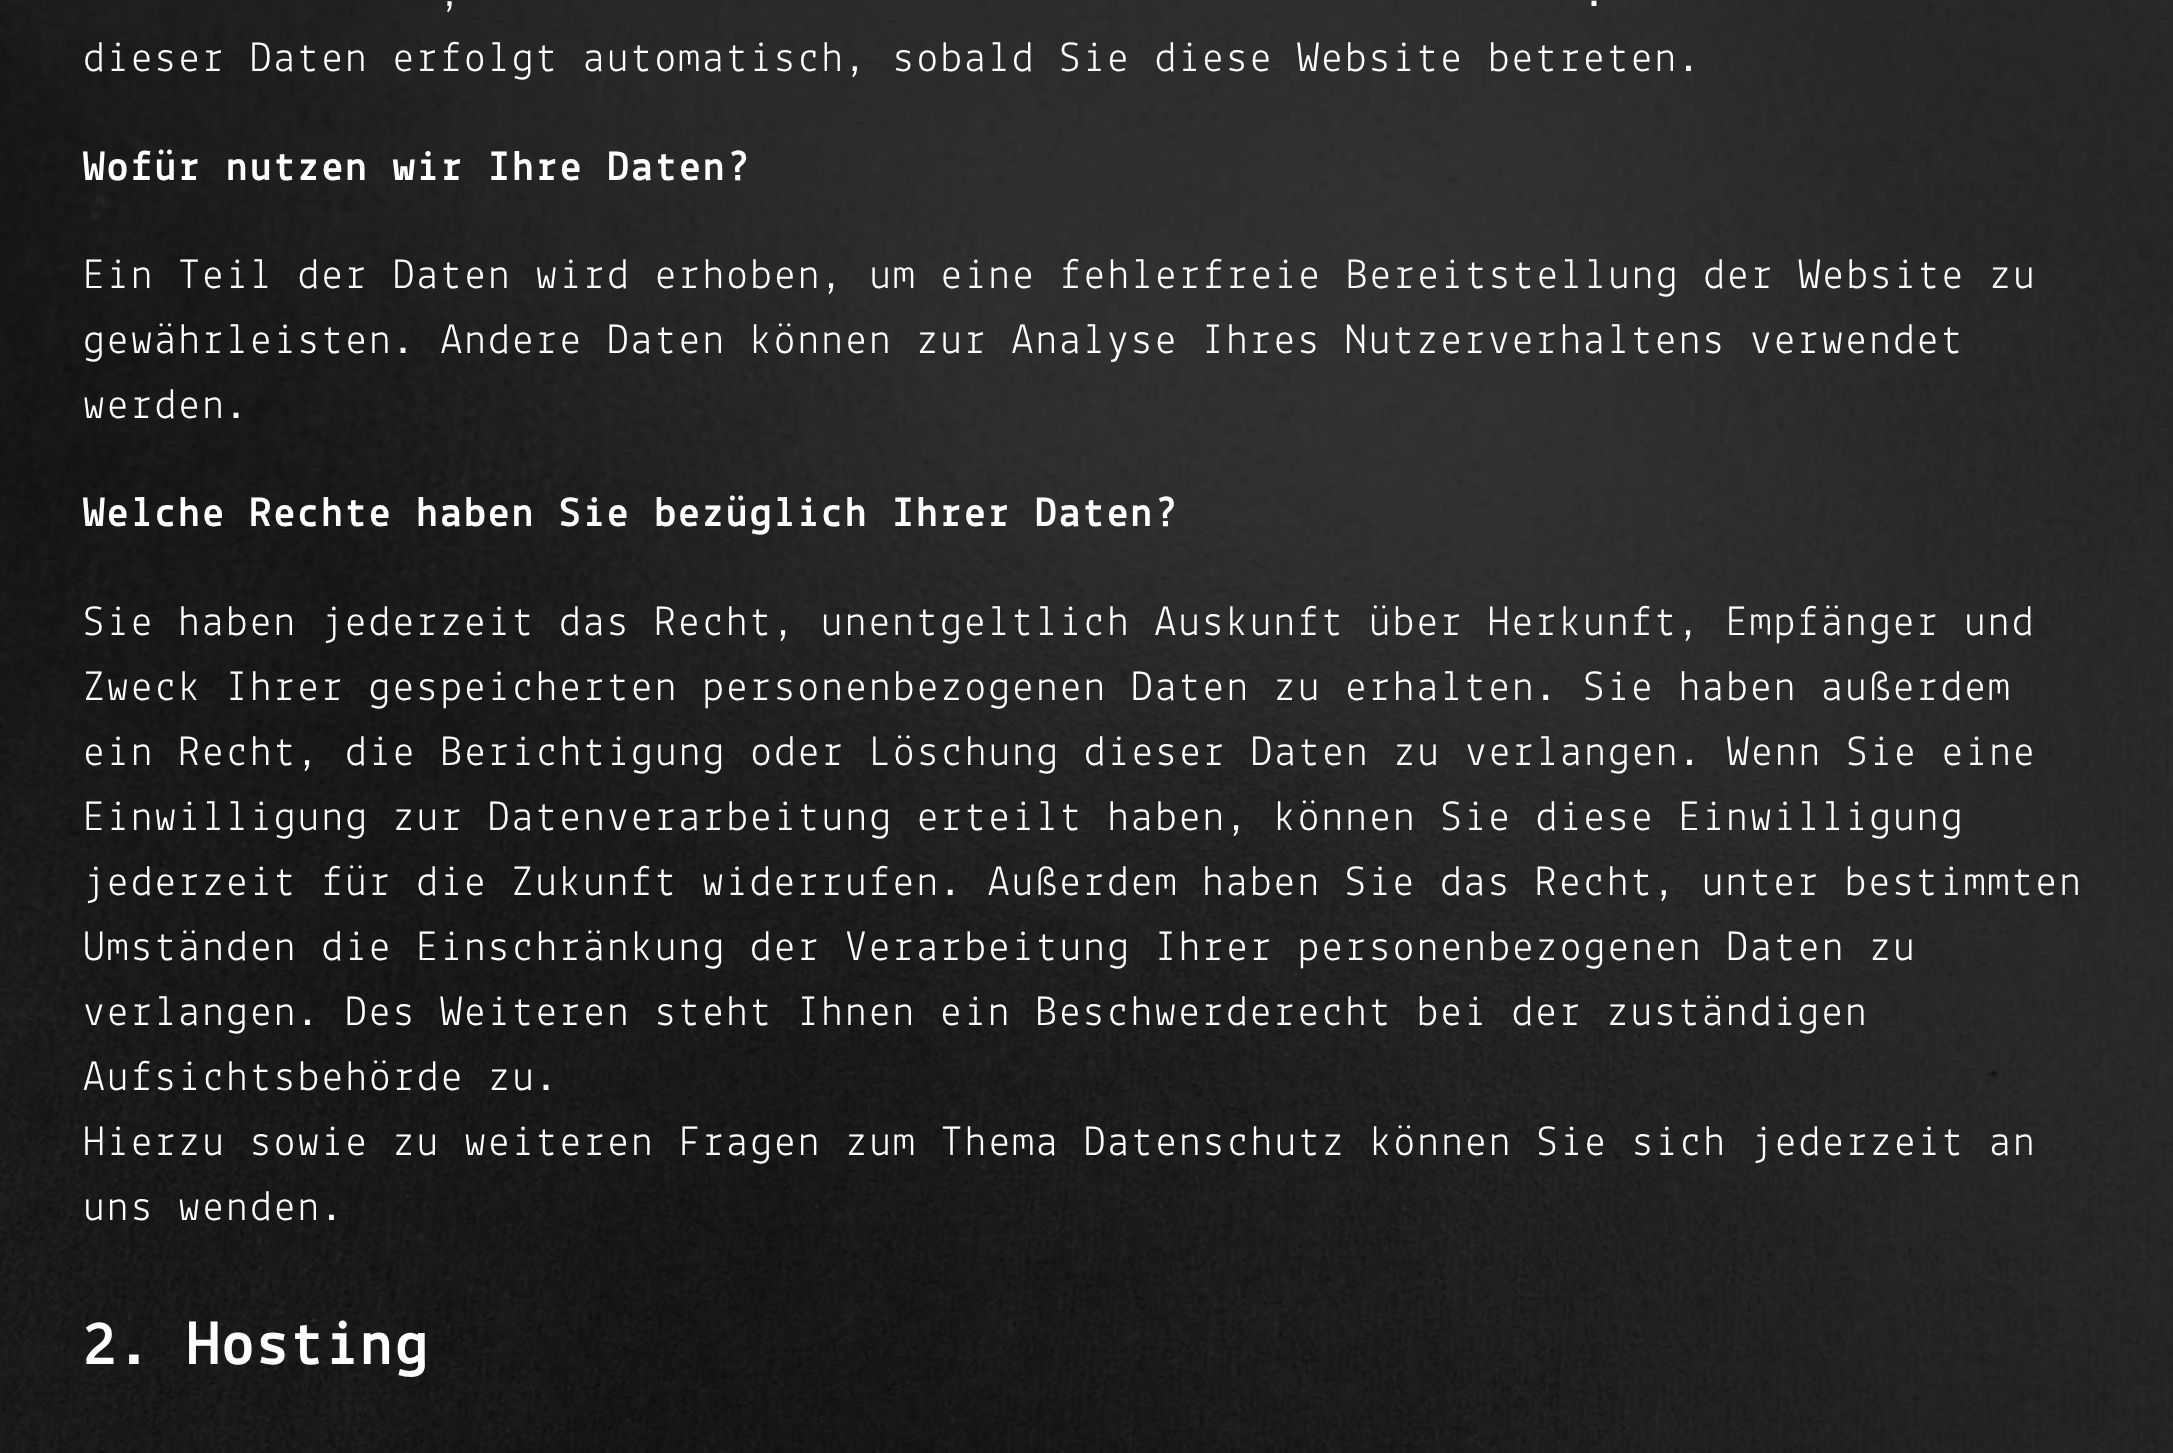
<svg xmlns="http://www.w3.org/2000/svg" xmlns:xlink="http://www.w3.org/1999/xlink" width="2173" height="1453" viewBox="0 0 2173 1453">
<style>*{font-kerning:none!important;font-variant-ligatures:none!important}</style>
<style>
.cls-1{font:43.35px Lekton;letter-spacing:2.17px;fill:#ffffff}
.cls-2{font:bold 43.35px Lekton;letter-spacing:2.17px;fill:#ffffff}
.cls-3{font:bold 65px Lekton;letter-spacing:2.17px;fill:#ffffff}
</style>
<rect width="100%" height="100%" fill="#ffffff"/>
<image xlink:href="image0.png" x="0" y="0" width="2173" height="1453"/>
<text class="cls-1" x="440" y="6">,</text>
<text class="cls-1" x="1584" y="6">.</text>
<text class="cls-1" x="83" y="71" word-spacing="-0.25">dieser Daten erfolgt automatisch, sobald Sie diese Website betreten.</text>
<text class="cls-2" x="83" y="180">Wofür nutzen wir Ihre Daten?</text>
<text class="cls-1"><tspan x="83" y="288" word-spacing="-0.1">Ein Teil der Daten wird erhoben, um eine fehlerfreie Bereitstellung der Website zu</tspan><tspan x="83" y="353" word-spacing="-0.25">gewährleisten. Andere Daten können zur Analyse Ihres Nutzerverhaltens verwendet</tspan><tspan x="83" y="418">werden.</tspan></text>
<text class="cls-2" x="83" y="526" word-spacing="-0.25">Welche Rechte haben Sie bezüglich Ihrer Daten?</text>
<text class="cls-1"><tspan x="83" y="635" word-spacing="-0.25">Sie haben jederzeit das Recht, unentgeltlich Auskunft über Herkunft, Empfänger und</tspan><tspan x="83" y="700" word-spacing="-0.25">Zweck Ihrer gespeicherten personenbezogenen Daten zu erhalten. Sie haben außerdem</tspan><tspan x="83" y="765" word-spacing="-0.1">ein Recht, die Berichtigung oder Löschung dieser Daten zu verlangen. Wenn Sie eine</tspan><tspan x="83" y="830" word-spacing="-0.25">Einwilligung zur Datenverarbeitung erteilt haben, können Sie diese Einwilligung</tspan><tspan x="83" y="895" word-spacing="-0.25">jederzeit für die Zukunft widerrufen. Außerdem haben Sie das Recht, unter bestimmten</tspan><tspan x="83" y="960" word-spacing="-0.25">Umständen die Einschränkung der Verarbeitung Ihrer personenbezogenen Daten zu</tspan><tspan x="83" y="1025" word-spacing="-0.25">verlangen. Des Weiteren steht Ihnen ein Beschwerderecht bei der zuständigen</tspan><tspan x="83" y="1090">Aufsichtsbehörde zu.</tspan><tspan x="83" y="1155" word-spacing="-0.1">Hierzu sowie zu weiteren Fragen zum Thema Datenschutz können Sie sich jederzeit an</tspan><tspan x="83" y="1220">uns wenden.</tspan></text>
<text class="cls-3" x="83" y="1364">2. Hosting</text>
</svg>
